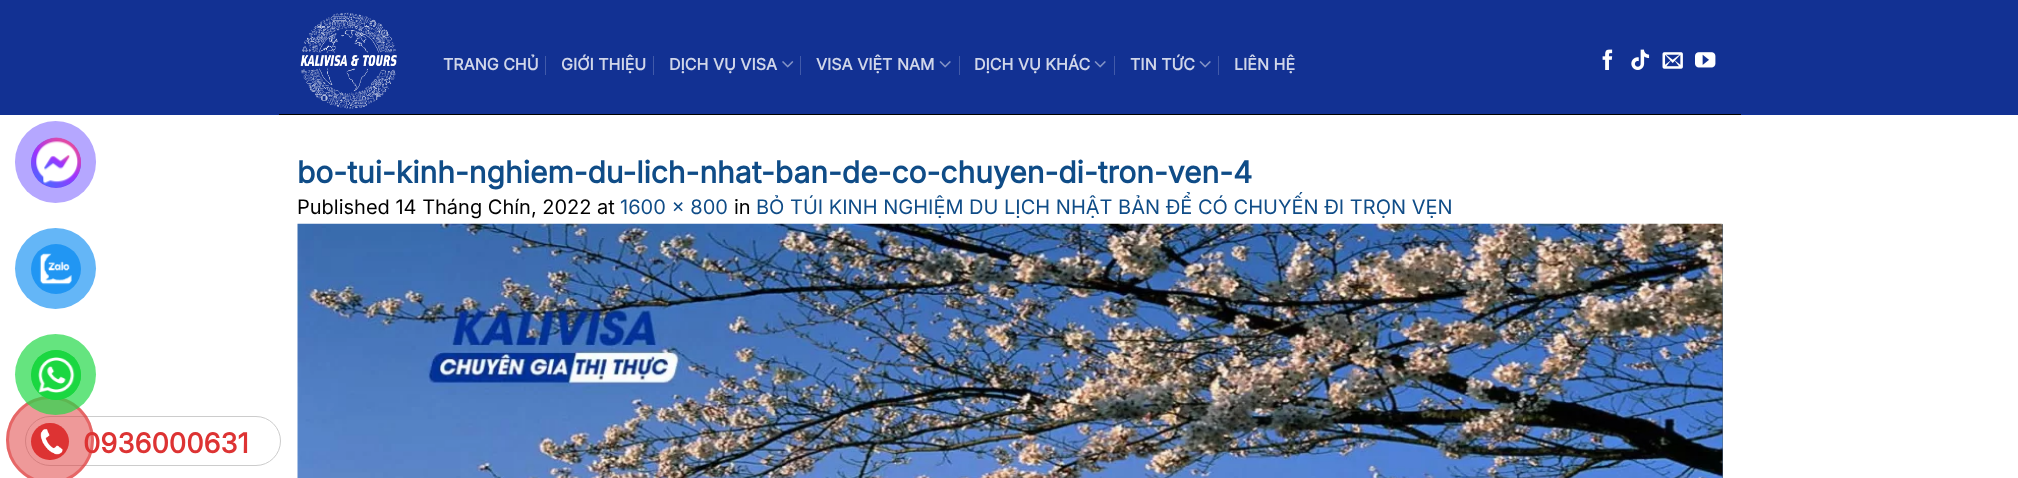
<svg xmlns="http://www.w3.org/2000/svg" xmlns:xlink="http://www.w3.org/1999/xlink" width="2018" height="478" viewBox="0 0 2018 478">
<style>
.cls-1{font:bold 16px Inter;fill:#d0d6e9}
.cls-2{font:bold 30px Inter;fill:#0f4c87}
.cls-3{font:20px Inter;fill:#000000}
.cls-4{font:20px Inter;fill:#0f4c87}
.cls-5{font:bold 27.5px Inter;fill:#dd3333}
</style>
<rect width="100%" height="100%" fill="#ffffff"/>
<rect fill="#b5a7ff" x="15" y="121" width="81" height="82" rx="40.5"/>
<circle fill="#6a4ffe" cx="56" cy="163" r="25"/>
<image xlink:href="image0.png" x="31" y="137" width="50" height="50"/>
<circle fill="#64b6f7" cx="55.5" cy="268.5" r="40.5"/>
<circle fill="#2196f3" cx="56" cy="269" r="25"/>
<image xlink:href="image1.png" x="39" y="253" width="33" height="32"/>
<rect fill="#123193" x="0" y="0" width="2018" height="115"/>
<rect fill="#000000" x="279" y="114" width="1462" height="1"/>
<image xlink:href="image3.png" x="300" y="12" width="97" height="97"/>
<rect fill="#415aa9" x="545" y="56" width="1" height="19"/>
<rect fill="#415aa9" x="653" y="56" width="1" height="19"/>
<image xlink:href="image4.png" x="782" y="61" width="12" height="7"/>
<rect fill="#415aa9" x="800" y="56" width="1" height="19"/>
<image xlink:href="image5.png" x="939" y="61" width="12" height="7"/>
<rect fill="#415aa9" x="959" y="56" width="1" height="19"/>
<image xlink:href="image5.png" x="1094" y="61" width="12" height="7"/>
<rect fill="#415aa9" x="1114" y="56" width="1" height="19"/>
<image xlink:href="image5.png" x="1199" y="61" width="12" height="7"/>
<rect fill="#415aa9" x="1218" y="56" width="1" height="19"/>
<image xlink:href="image6.png" x="1602" y="49" width="11" height="21"/>
<image xlink:href="image7.png" x="1631" y="49" width="19" height="21"/>
<image xlink:href="image8.png" x="1662" y="52" width="21" height="17"/>
<image xlink:href="image9.png" x="1695" y="52" width="21" height="16"/>
<rect fill="#506681" x="1722" y="224" width="1" height="254"/>
<image xlink:href="image10.png" x="297" y="223" width="1426" height="255"/>
<rect fill="none" stroke="#cccccc" x="25.5" y="416.5" width="255" height="49" rx="24.5"/>
<text class="cls-1" x="443" y="70">TRANG CHỦ</text>
<text class="cls-1" x="561" y="70">GIỚI THIỆU</text>
<text class="cls-1" x="669" y="70">DỊCH VỤ VISA</text>
<text class="cls-1" x="816" y="70">VISA VIỆT NAM</text>
<text class="cls-1" x="974" y="70">DỊCH VỤ KHÁC</text>
<text class="cls-1" x="1130" y="70">TIN TỨC</text>
<text class="cls-1" x="1234" y="70">LIÊN HỆ</text>
<text class="cls-2" x="297" y="183">bo-tui-kinh-nghiem-du-lich-nhat-ban-de-co-chuyen-di-tron-ven-4</text>
<text class="cls-3" x="297" y="214">Published 14 Tháng Chín, 2022 at</text>
<text class="cls-4" x="620" y="214">1600 × 800</text>
<text class="cls-3" x="734" y="214">in</text>
<text class="cls-4" x="756" y="214">BỎ TÚI KINH NGHIỆM DU LỊCH NHẬT BẢN ĐỂ CÓ CHUYẾN ĐI TRỌN VẸN</text>
<text class="cls-5" x="83" y="453">0936000631</text>
<circle fill="#dd3333" fill-opacity="0.5" cx="50" cy="440" r="44"/>
<circle fill="none" stroke="#dd3333" stroke-opacity="0.5" stroke-width="3" cx="50" cy="440" r="42.5"/>
<circle fill="#23d948" fill-opacity="0.7" cx="55.5" cy="374.5" r="40.5"/>
<circle fill="#1cd741" cx="56" cy="375" r="25"/>
<image xlink:href="image2.png" x="31" y="350" width="50" height="50"/>
<rect fill="#dd3333" x="31" y="423" width="38" height="37" rx="18.5"/>
<image xlink:href="image11.png" x="40" y="429" width="23" height="26"/>
</svg>
